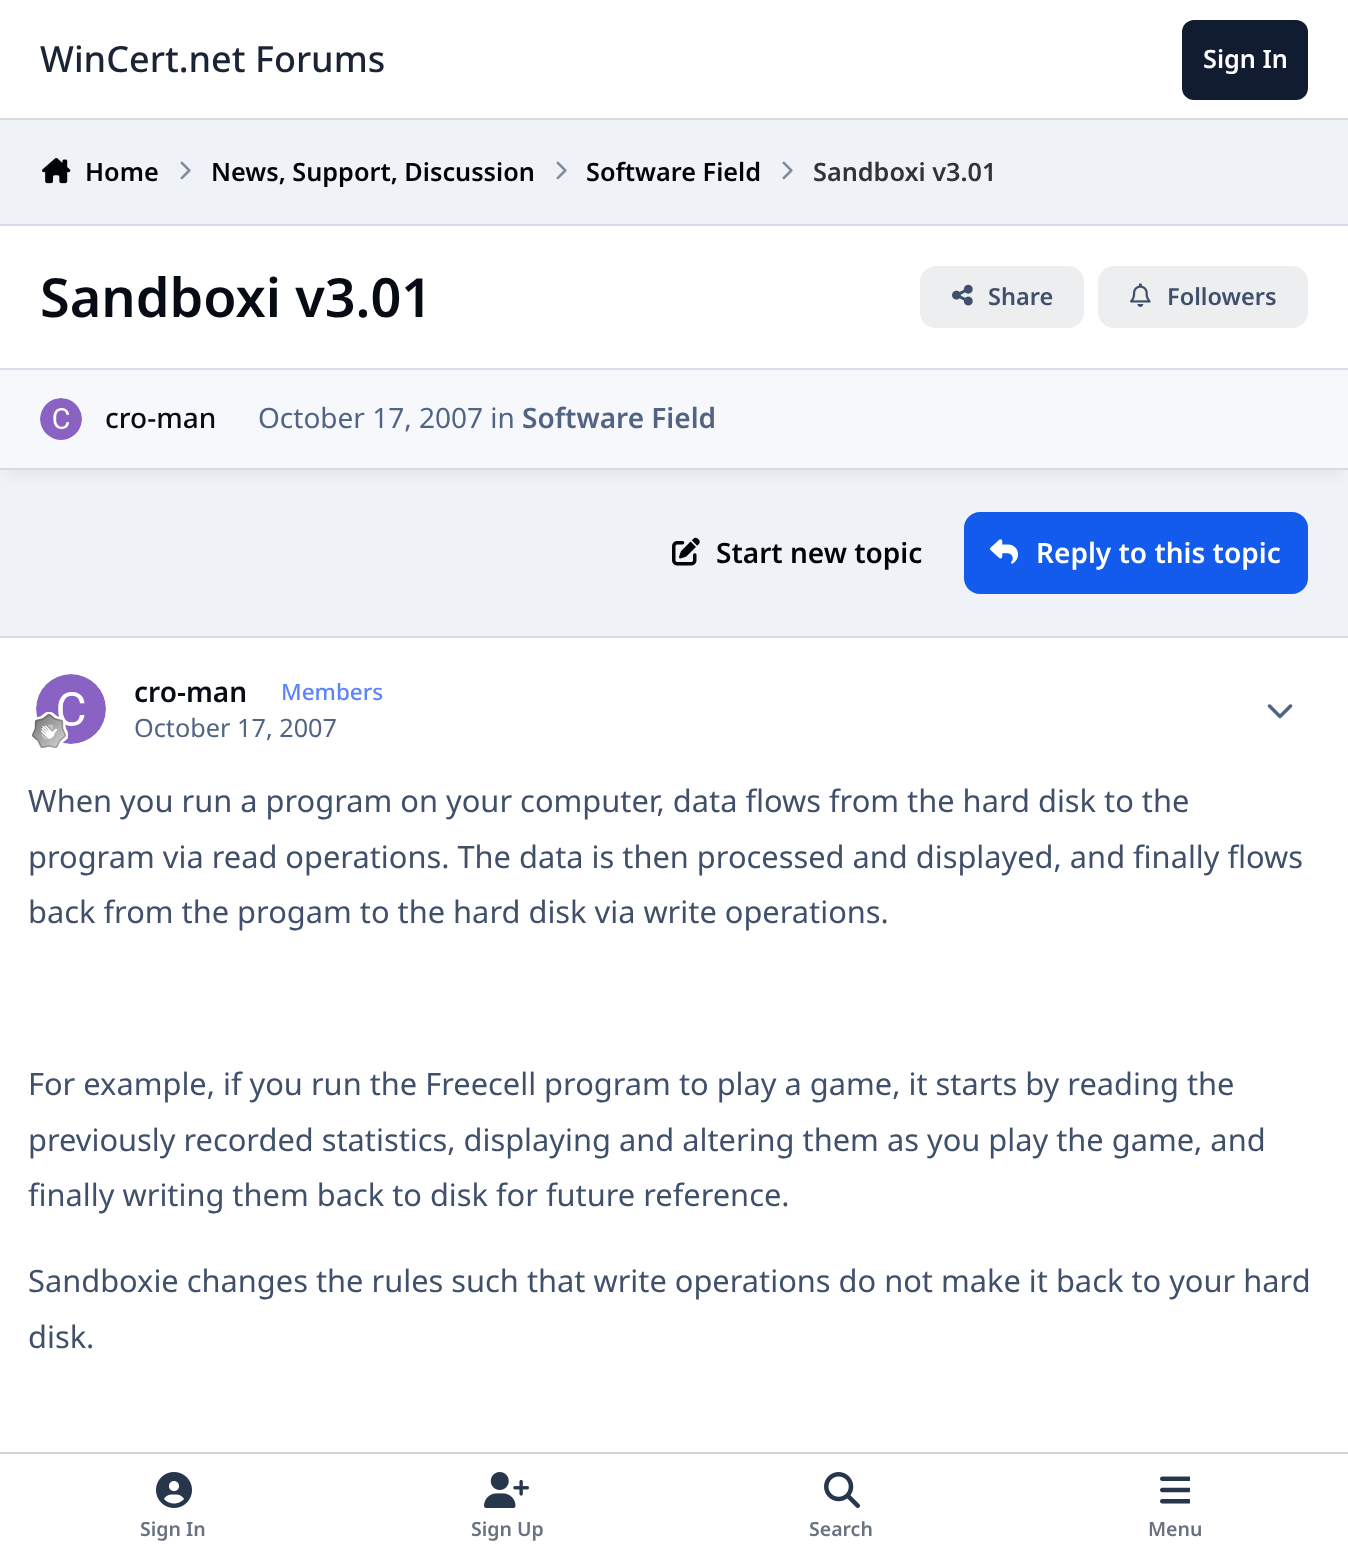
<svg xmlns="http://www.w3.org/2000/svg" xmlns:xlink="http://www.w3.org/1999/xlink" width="1348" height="1564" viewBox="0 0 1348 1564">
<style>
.cls-1{font:500 36px Noto Sans;fill:#1b2434}
.cls-2{font:600 25.25px Noto Sans;fill:#ffffff}
.cls-3{font:600 25.25px Noto Sans;fill:#020305}
.cls-4{font:600 25.25px Noto Sans;fill:#313335}
.cls-5{font:600 54px Noto Sans;fill:#060b14}
.cls-6{font:600 23.5px Noto Sans;fill:#40506b}
.cls-7{font:500 28px Noto Sans;fill:#060b14}
.cls-8{font:28px Noto Sans;fill:#516483}
.cls-9{font:600 28px Noto Sans;fill:#516483}
.cls-10{font:600 28px Noto Sans;fill:#020305}
.cls-11{font:600 28px Noto Sans;fill:#ffffff}
.cls-12{font:600 28px Noto Sans;fill:#060b14}
.cls-13{font:500 22.5px Noto Sans;fill:#5c83fe}
.cls-14{font:25.25px Noto Sans;fill:#516483}
.cls-15{font:30.8px Noto Sans;fill:#40506b}
.cls-16{font:600 19.5px Noto Sans;fill:#697282}
</style>
<rect width="100%" height="100%" fill="#eff2f7"/>
<rect fill="#ffffff" x="0" y="0" width="1348" height="118"/>
<rect fill="#dadadc" x="0" y="118" width="1348" height="2"/>
<rect fill="#111c31" x="1182" y="20" width="126" height="80" rx="12"/>
<image xlink:href="image0.png" x="42" y="158" width="29" height="26"/>
<image xlink:href="image1.png" x="180" y="161" width="11" height="19"/>
<image xlink:href="image1.png" x="556" y="161" width="11" height="19"/>
<image xlink:href="image1.png" x="782" y="161" width="11" height="19"/>
<rect fill="#01030a" fill-opacity="0.05" filter="blur(7px)" x="6" y="242" width="1336" height="234"/>
<rect fill="#ffffff" x="0" y="226" width="1348" height="142"/>
<rect fill="#d5dbe6" x="0" y="224" width="1348" height="2"/>
<rect fill="#d5dbe6" x="0" y="468" width="1348" height="2"/>
<rect fill="#eceef0" x="920" y="266" width="164" height="62" rx="16"/>
<image xlink:href="image2.png" x="952" y="284" width="21" height="22"/>
<rect fill="#eceef0" x="1098" y="266" width="210" height="62" rx="16"/>
<image xlink:href="image3.png" x="1130" y="283" width="21" height="24"/>
<rect fill="#f7f8fb" x="0" y="370" width="1348" height="98"/>
<rect fill="#d7dfea" x="0" y="368" width="1348" height="2"/>
<circle fill="#e5eaf2" cx="61" cy="419" r="21"/>
<image xlink:href="image4.png" x="40" y="398" width="42" height="42"/>
<image xlink:href="image5.png" x="672" y="537" width="28" height="29"/>
<rect fill="#135bec" x="964" y="512" width="344" height="82" rx="16"/>
<image xlink:href="image6.png" x="990" y="539" width="28" height="25"/>
<rect fill="#ffffff" x="0" y="638" width="1348" height="814"/>
<rect fill="#d5dbe6" x="0" y="636" width="1348" height="2"/>
<circle fill="#e5eaf2" cx="71" cy="709" r="35"/>
<image xlink:href="image7.png" x="36" y="674" width="70" height="70"/>
<image xlink:href="image8.png" x="32" y="712" width="36" height="36"/>
<image xlink:href="image9.png" x="1267" y="704" width="26" height="15"/>
<rect fill="#cfd3da" x="0" y="1452" width="1348" height="2"/>
<rect fill="#ffffff" x="0" y="1454" width="1348" height="110"/>
<image xlink:href="image10.png" x="156" y="1472" width="36" height="36"/>
<image xlink:href="image11.png" x="484" y="1472" width="45" height="36"/>
<image xlink:href="image12.png" x="824" y="1472" width="36" height="36"/>
<image xlink:href="image13.png" x="1160" y="1476" width="30" height="28"/>
<text class="cls-1" x="40" y="72">WinCert.net Forums</text>
<text class="cls-2" x="1203" y="68">Sign In</text>
<text class="cls-3" x="85" y="181">Home</text>
<text class="cls-3" x="211" y="181">News, Support, Discussion</text>
<text class="cls-3" x="586" y="181">Software Field</text>
<text class="cls-4" x="813" y="181">Sandboxi v3.01</text>
<text class="cls-5" x="40" y="317">Sandboxi v3.01</text>
<text class="cls-6" x="988" y="305">Share</text>
<text class="cls-6" x="1167" y="305">Followers</text>
<text class="cls-7" x="105" y="428">cro-man</text>
<text class="cls-8" x="258" y="428">October 17, 2007 in</text>
<text class="cls-9" x="522" y="428">Software Field</text>
<text class="cls-10" x="716" y="563">Start new topic</text>
<text class="cls-11" x="1036" y="563">Reply to this topic</text>
<text class="cls-12" x="134" y="702">cro-man</text>
<text class="cls-13" x="281" y="700">Members</text>
<text class="cls-14" x="134" y="737">October 17, 2007</text>
<text class="cls-15"><tspan x="28" y="812">When you run a program on your computer, data flows from the hard disk to the</tspan><tspan x="28" y="868">program via read operations. The data is then processed and displayed, and finally flows</tspan><tspan x="28" y="923">back from the progam to the hard disk via write operations.</tspan></text>
<text class="cls-15"><tspan x="28" y="1095">For example, if you run the Freecell program to play a game, it starts by reading the</tspan><tspan x="28" y="1151">previously recorded statistics, displaying and altering them as you play the game, and</tspan><tspan x="28" y="1206">finally writing them back to disk for future reference.</tspan></text>
<text class="cls-15"><tspan x="28" y="1292">Sandboxie changes the rules such that write operations do not make it back to your hard</tspan><tspan x="28" y="1348">disk.</tspan></text>
<text class="cls-16" x="140" y="1536">Sign In</text>
<text class="cls-16" x="471" y="1536">Sign Up</text>
<text class="cls-16" x="809" y="1536">Search</text>
<text class="cls-16" x="1148" y="1536">Menu</text>
</svg>
